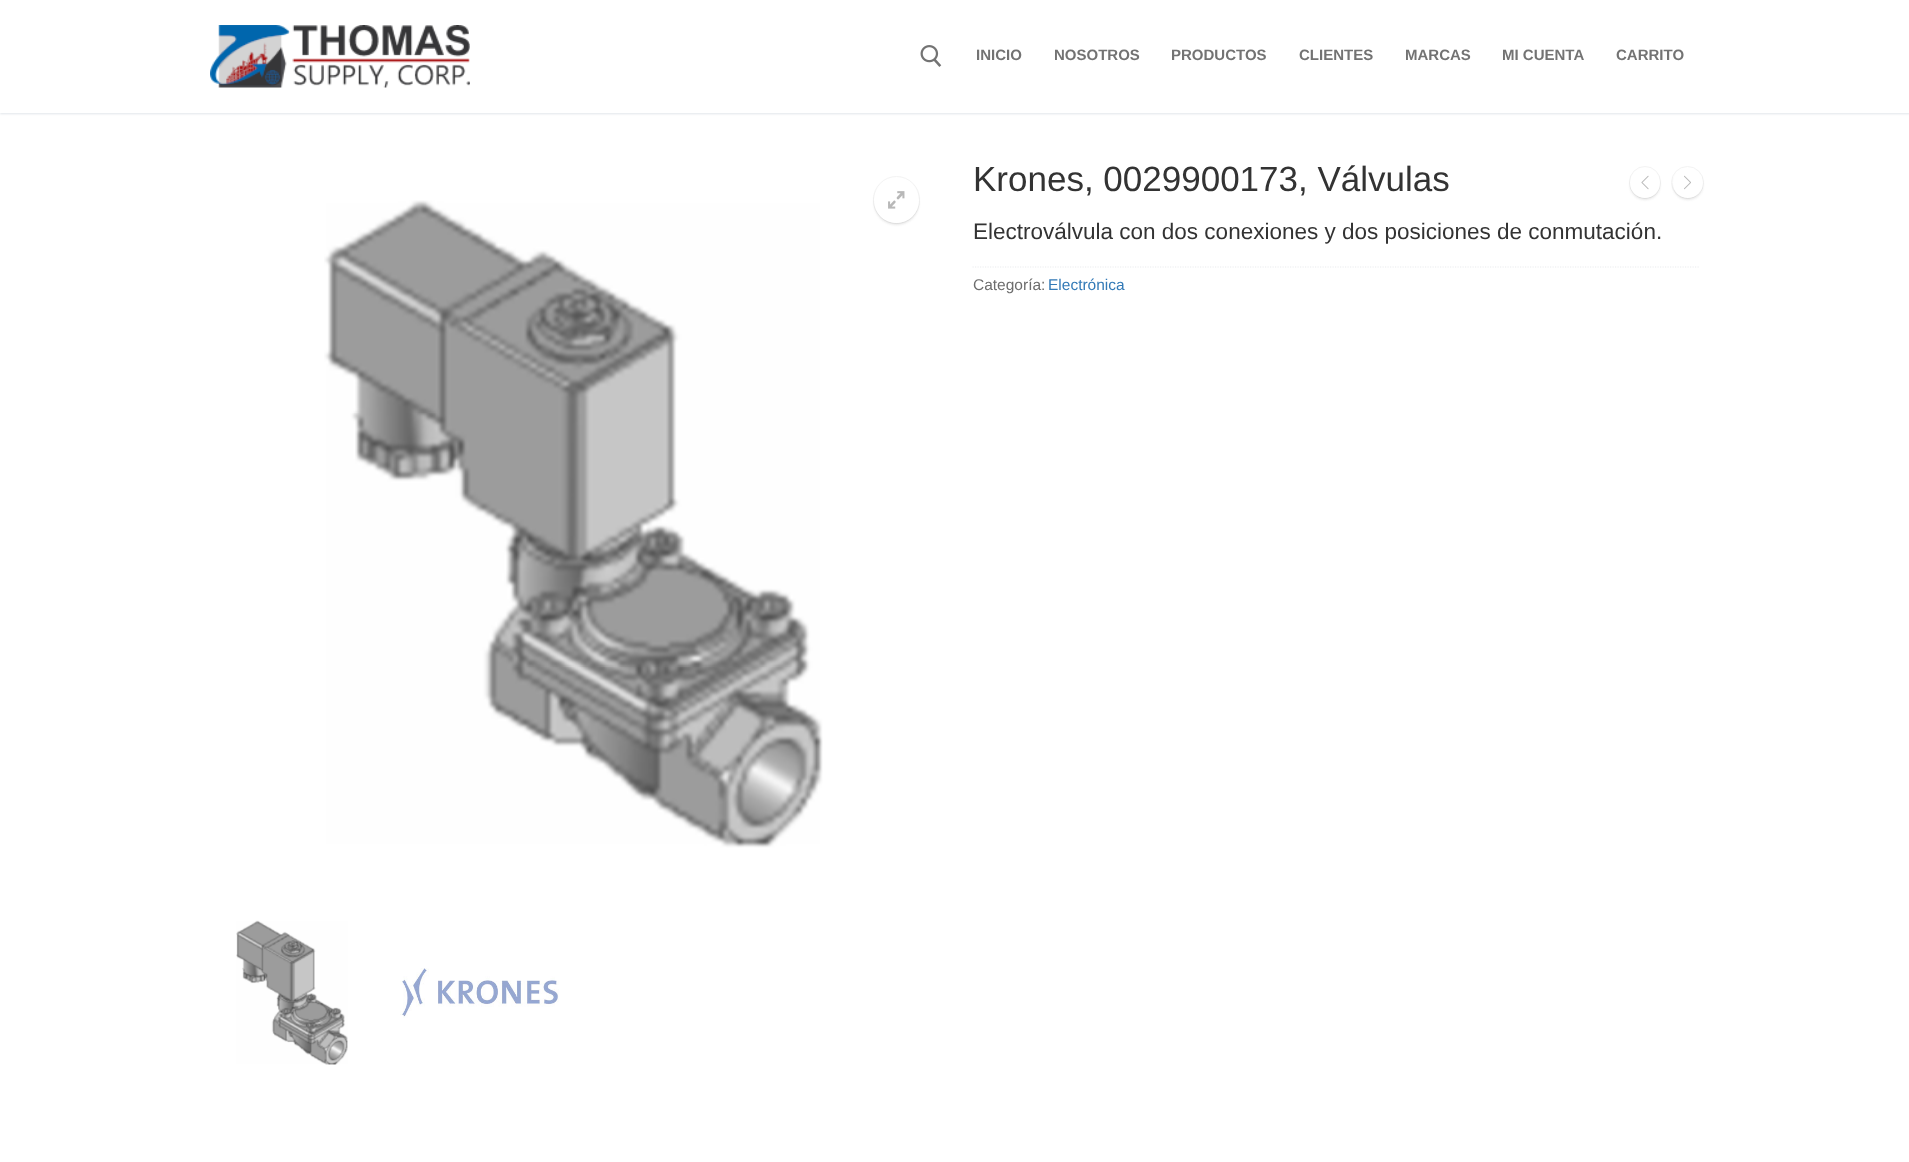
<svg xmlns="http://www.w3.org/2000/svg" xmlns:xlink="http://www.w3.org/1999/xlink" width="1909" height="1162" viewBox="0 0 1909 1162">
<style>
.cls-1{font:bold 15px Liberation Sans;fill:#737373}
.cls-2{font:35px Liberation Sans;fill:#333333}
.cls-3{font:22.5px Liberation Sans;fill:#333333}
.cls-4{font:15.5px Liberation Sans;fill:#6d6d6d}
.cls-5{font:15.5px Liberation Sans;fill:#337ab7}
</style>
<defs>
<clipPath id="clip1"><path d="M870 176H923V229H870ZM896.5 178C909 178 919 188 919 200.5C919 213 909 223 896.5 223C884 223 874 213 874 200.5C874 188 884 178 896.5 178Z" clip-rule="evenodd"/></clipPath>
<clipPath id="clip2"><path d="M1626 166H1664V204H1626ZM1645 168C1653.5 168 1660 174.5 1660 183C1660 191.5 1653.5 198 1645 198C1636.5 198 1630 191.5 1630 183C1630 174.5 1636.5 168 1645 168Z" clip-rule="evenodd"/></clipPath>
<clipPath id="clip3"><path d="M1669 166H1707V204H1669ZM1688 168C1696.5 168 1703 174.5 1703 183C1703 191.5 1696.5 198 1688 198C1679.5 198 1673 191.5 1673 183C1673 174.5 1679.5 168 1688 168Z" clip-rule="evenodd"/></clipPath>
</defs>
<rect width="100%" height="100%" fill="#ffffff"/>
<rect fill="#e1e5ea" filter="blur(1px)" x="0" y="1" width="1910" height="113"/>
<rect fill="#ffffff" x="0" y="0" width="1909" height="113"/>
<image xlink:href="image0.png" x="210" y="25" width="260" height="63"/>
<image xlink:href="image1.png" x="920" y="45" width="22" height="22"/>
<image xlink:href="image2.png" x="324" y="200" width="499" height="648"/>
<rect fill="none" stroke="#f3f3f3" x="873.5" y="176.5" width="46" height="47" rx="23"/>
<g clip-path="url(#clip1)">
<rect fill="#666666" fill-opacity="0.16" filter="blur(1px)" x="874" y="180" width="45" height="45" rx="22.5"/>
</g>
<circle fill="#ffffff" fill-opacity="0.5" cx="896.5" cy="200.5" r="22.5"/>
<image xlink:href="image3.png" x="888" y="191" width="17" height="18"/>
<image xlink:href="image4.png" x="236" y="920" width="112" height="145"/>
<image xlink:href="image5.png" x="400" y="968" width="159" height="50"/>
<rect fill="none" stroke="#f3f3f3" x="1629.5" y="166.5" width="31" height="32" rx="15.5"/>
<g clip-path="url(#clip2)">
<rect fill="#666666" fill-opacity="0.16" filter="blur(1px)" x="1630" y="170" width="30" height="30" rx="15"/>
</g>
<circle fill="#ffffff" fill-opacity="0.5" cx="1645" cy="183" r="15"/>
<image xlink:href="image6.png" x="1641" y="175" width="8" height="15"/>
<circle fill="none" stroke="#f3f3f3" cx="1687.5" cy="182.5" r="16"/>
<g clip-path="url(#clip3)">
<rect fill="#666666" fill-opacity="0.16" filter="blur(1px)" x="1673" y="170" width="30" height="30" rx="15"/>
</g>
<circle fill="#ffffff" fill-opacity="0.5" cx="1688" cy="183" r="15"/>
<image xlink:href="image7.png" x="1684" y="175" width="7" height="15"/>
<path fill="none" stroke="#eaecee" stroke-width="1.2" stroke-dasharray="1.25 1.25" d="M972.5 267H1700"/>
<text class="cls-1" x="976" y="60">INICIO</text>
<text class="cls-1" x="1054" y="60">NOSOTROS</text>
<text class="cls-1" x="1171" y="60">PRODUCTOS</text>
<text class="cls-1" x="1299" y="60">CLIENTES</text>
<text class="cls-1" x="1405" y="60">MARCAS</text>
<text class="cls-1" x="1502" y="60">MI CUENTA</text>
<text class="cls-1" x="1616" y="60">CARRITO</text>
<text class="cls-2" x="973" y="191">Krones, 0029900173, Válvulas</text>
<text class="cls-3" x="973" y="239">Electroválvula con dos conexiones y dos posiciones de conmutación.</text>
<text class="cls-4" x="973" y="290">Categoría:</text>
<text class="cls-5" x="1048" y="290">Electrónica</text>
</svg>
